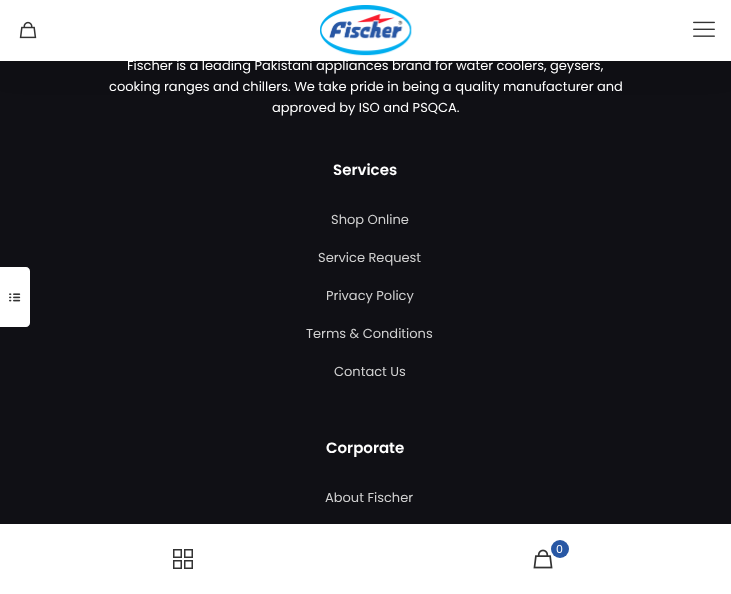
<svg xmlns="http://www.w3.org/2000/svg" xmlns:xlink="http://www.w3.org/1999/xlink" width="731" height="594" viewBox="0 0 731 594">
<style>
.cls-1{font:13px Poppins;fill:#ffffff}
.cls-2{font:600 15px Poppins;fill:#ffffff}
.cls-3{font:13px Poppins;fill:#d1d1d1}
.cls-4{font:11px Poppins;fill:#ffffff}
</style>
<rect width="100%" height="100%" fill="#101015"/>
<path fill="#ffffff" d="M0 267H26C28 267 30 269 30 271V323C30 325 28 327 26 327H0Z"/>
<image xlink:href="image0.png" x="9" y="293" width="12" height="9"/>
<rect fill="#000000" fill-opacity="0.1" filter="blur(15px)" x="0" y="5" width="731" height="61"/>
<rect fill="#ffffff" x="0" y="0" width="731" height="61"/>
<image xlink:href="image1.png" x="19" y="21" width="18" height="18"/>
<image xlink:href="image2.png" x="320" y="5" width="92" height="51"/>
<image xlink:href="image3.png" x="693" y="21" width="22" height="16"/>
<rect fill="#ffffff" x="0" y="524" width="731" height="70"/>
<rect fill="none" stroke="#333333" stroke-width="1.5" x="184.75" y="549.75" width="7.5" height="7.5"/>
<rect fill="none" stroke="#333333" stroke-width="1.5" x="173.75" y="549.75" width="7.5" height="7.5"/>
<rect fill="none" stroke="#333333" stroke-width="1.5" x="173.75" y="560.75" width="7.5" height="7.5"/>
<rect fill="none" stroke="#333333" stroke-width="1.5" x="184.75" y="560.75" width="7.5" height="7.5"/>
<image xlink:href="image4.png" x="533" y="549" width="20" height="20"/>
<circle fill="#2857a4" cx="560" cy="549" r="9"/>
<text class="cls-1" x="127" y="70">Fischer is a leading Pakistani appliances brand for water coolers, geysers,</text>
<text class="cls-1" x="109" y="91">cooking ranges and chillers. We take pride in being a quality manufacturer and</text>
<text class="cls-1" x="272" y="112">approved by ISO and PSQCA.</text>
<text class="cls-2" x="333" y="175">Services</text>
<text class="cls-3" x="331" y="224">Shop Online</text>
<text class="cls-3" x="318" y="262">Service Request</text>
<text class="cls-3" x="326" y="300">Privacy Policy</text>
<text class="cls-3" x="306" y="338">Terms &amp; Conditions</text>
<text class="cls-3" x="334" y="376">Contact Us</text>
<text class="cls-2" x="326" y="453">Corporate</text>
<text class="cls-3" x="325" y="502">About Fischer</text>
<text class="cls-4" x="556" y="553">0</text>
</svg>
